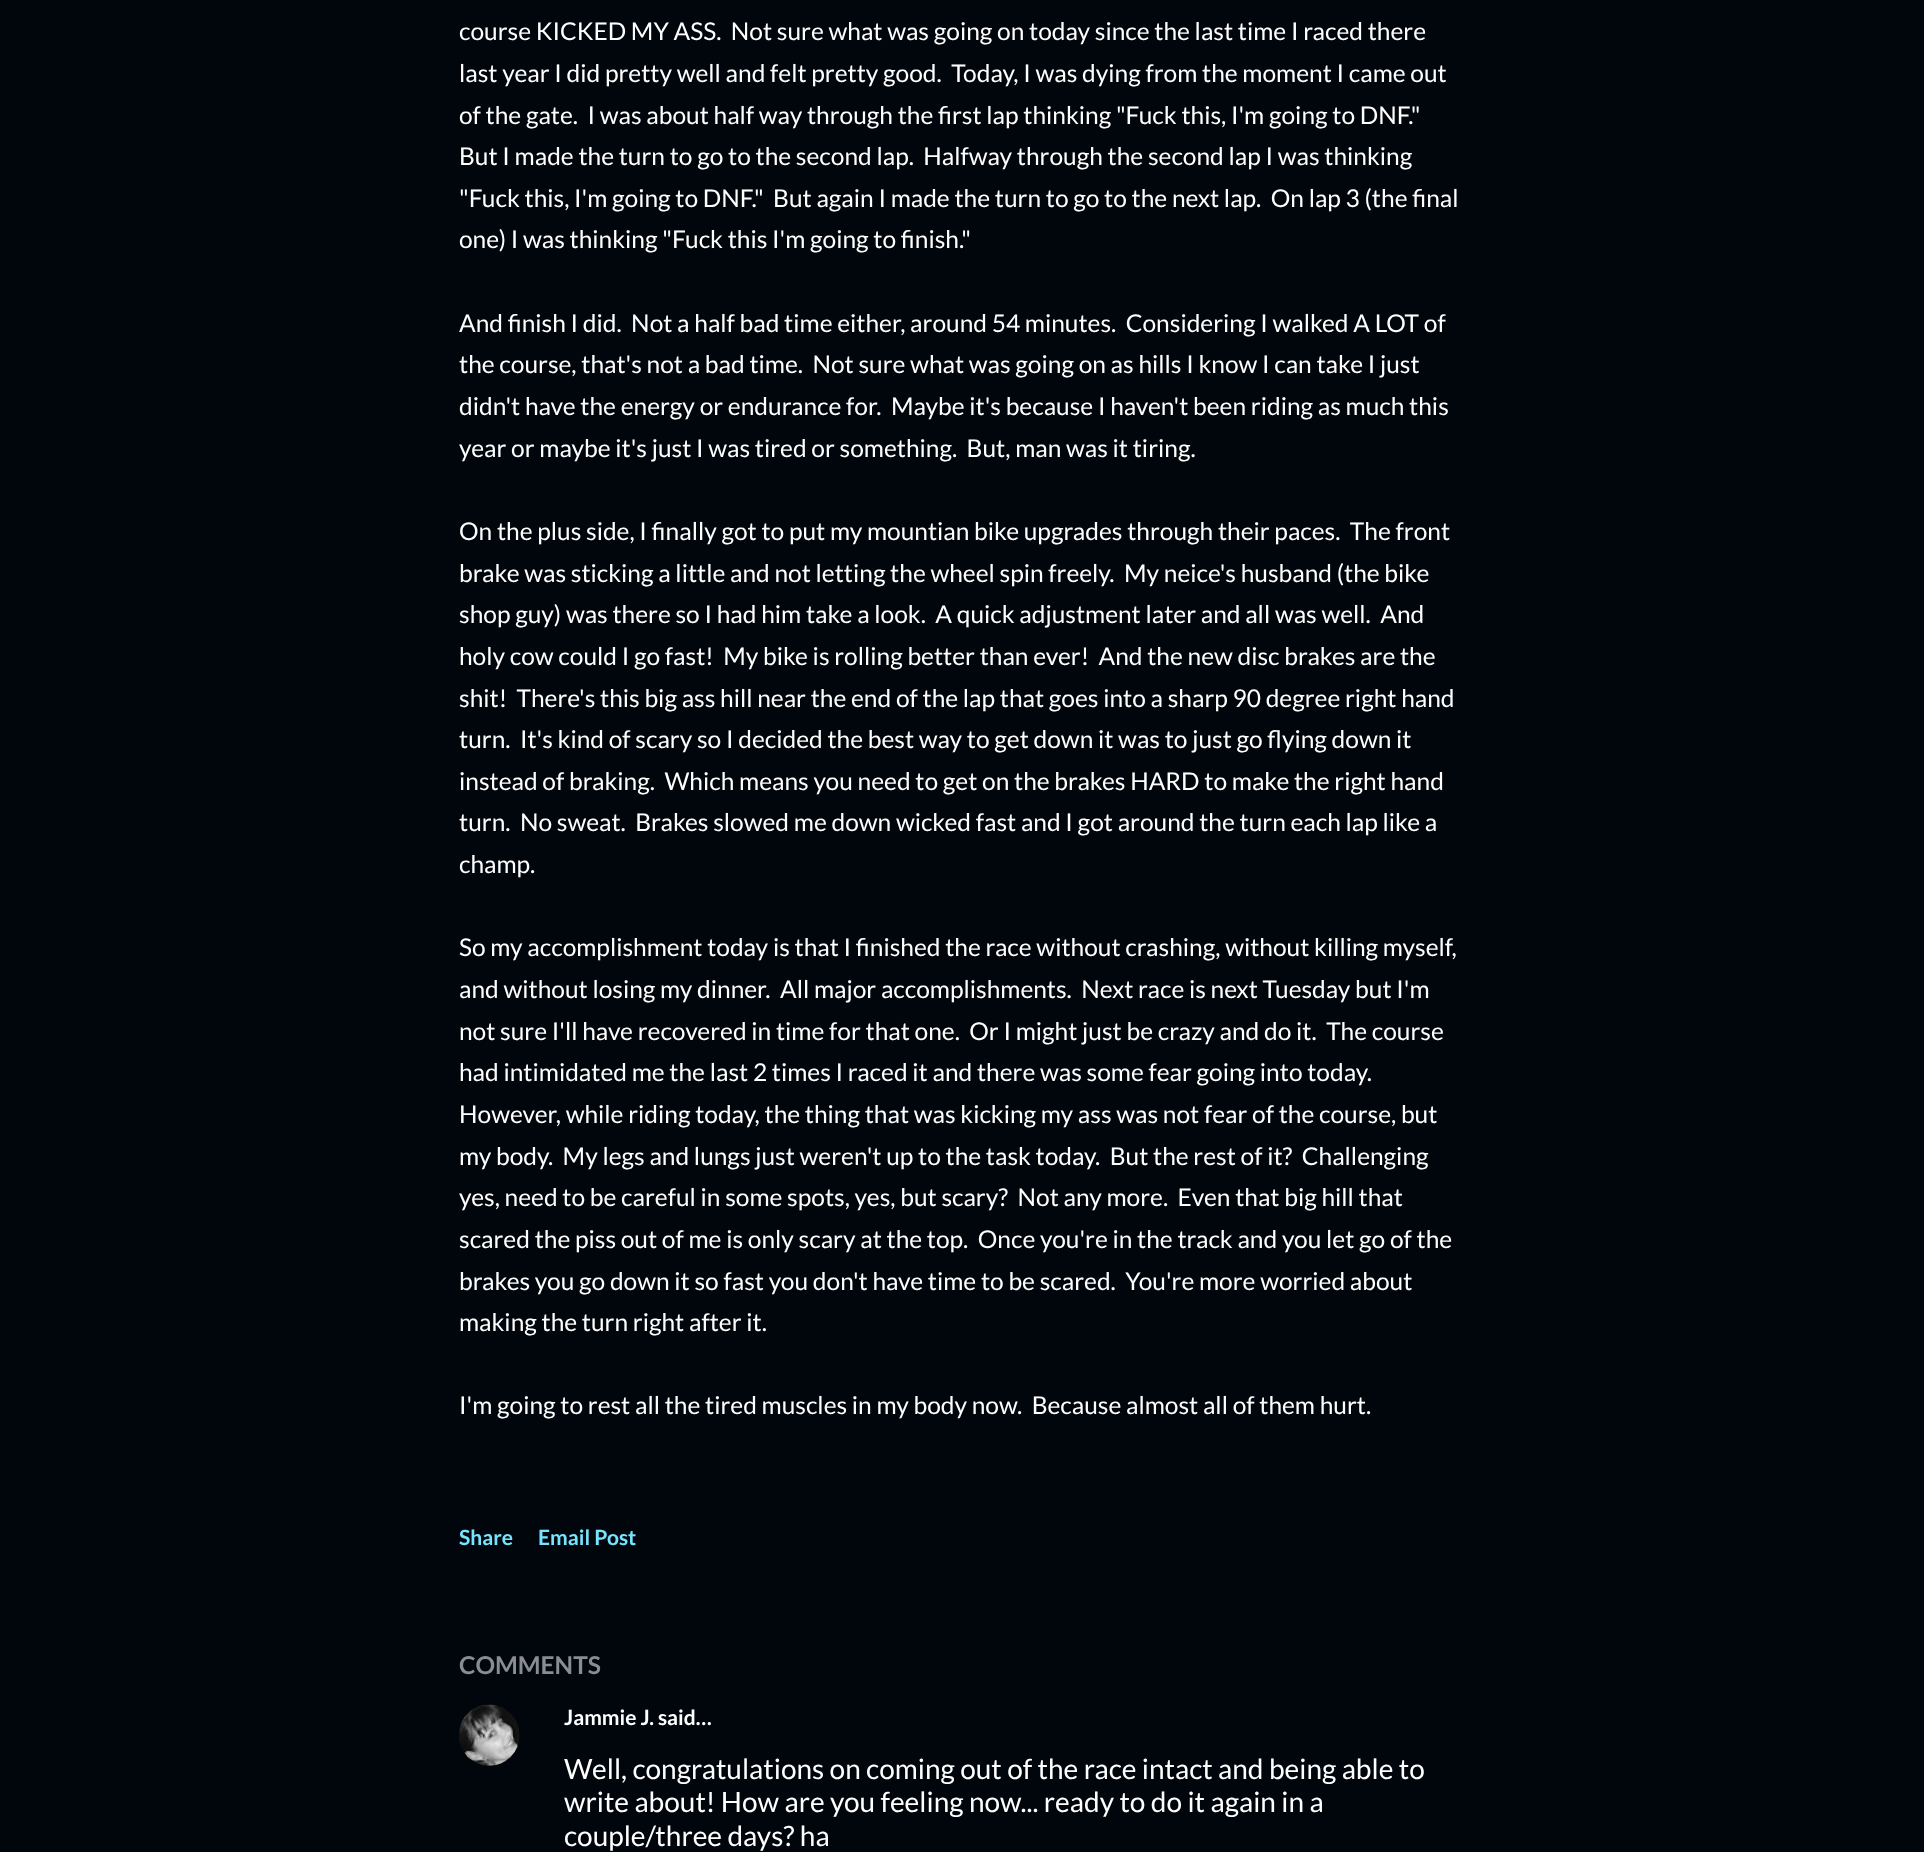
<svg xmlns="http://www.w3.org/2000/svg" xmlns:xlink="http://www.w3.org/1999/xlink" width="1924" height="1852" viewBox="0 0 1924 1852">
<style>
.cls-1{font:24.5px Lato;fill:#ffffff}
.cls-2{font:bold 21px Lato;fill:#77e4ff}
.cls-3{font:bold 24.5px Lato;fill:#8a8c8f}
.cls-4{font:bold 21px Lato;fill:#ffffff}
.cls-5{font:28px Lato;fill:#ffffff}
</style>
<rect width="100%" height="100%" fill="#01050c"/>
<image xlink:href="image0.png" x="459" y="1704" width="61" height="62"/>
<text class="cls-1" xml:space="preserve"><tspan x="459" y="40">course KICKED MY ASS.  Not sure what was going on today since the last time I raced there</tspan><tspan x="459" y="82">last year I did pretty well and felt pretty good.  Today, I was dying from the moment I came out</tspan><tspan x="459" y="124">of the gate.  I was about half way through the first lap thinking "Fuck this, I'm going to DNF."</tspan><tspan x="459" y="165">But I made the turn to go to the second lap.  Halfway through the second lap I was thinking</tspan><tspan x="459" y="207">"Fuck this, I'm going to DNF."  But again I made the turn to go to the next lap.  On lap 3 (the final</tspan><tspan x="459" y="248">one) I was thinking "Fuck this I'm going to finish."</tspan></text>
<text class="cls-1" xml:space="preserve"><tspan x="459" y="332">And finish I did.  Not a half bad time either, around 54 minutes.  Considering I walked A LOT of</tspan><tspan x="459" y="373">the course, that's not a bad time.  Not sure what was going on as hills I know I can take I just</tspan><tspan x="459" y="415">didn't have the energy or endurance for.  Maybe it's because I haven't been riding as much this</tspan><tspan x="459" y="457">year or maybe it's just I was tired or something.  But, man was it tiring.</tspan></text>
<text class="cls-1" xml:space="preserve"><tspan x="459" y="540">On the plus side, I finally got to put my mountian bike upgrades through their paces.  The front</tspan><tspan x="459" y="582">brake was sticking a little and not letting the wheel spin freely.  My neice's husband (the bike</tspan><tspan x="459" y="623">shop guy) was there so I had him take a look.  A quick adjustment later and all was well.  And</tspan><tspan x="459" y="665">holy cow could I go fast!  My bike is rolling better than ever!  And the new disc brakes are the</tspan><tspan x="459" y="707">shit!  There's this big ass hill near the end of the lap that goes into a sharp 90 degree right hand</tspan><tspan x="459" y="748">turn.  It's kind of scary so I decided the best way to get down it was to just go flying down it</tspan><tspan x="459" y="790">instead of braking.  Which means you need to get on the brakes HARD to make the right hand</tspan><tspan x="459" y="831">turn.  No sweat.  Brakes slowed me down wicked fast and I got around the turn each lap like a</tspan><tspan x="459" y="873">champ.</tspan></text>
<text class="cls-1" xml:space="preserve"><tspan x="459" y="956">So my accomplishment today is that I finished the race without crashing, without killing myself,</tspan><tspan x="459" y="998">and without losing my dinner.  All major accomplishments.  Next race is next Tuesday but I'm</tspan><tspan x="459" y="1040">not sure I'll have recovered in time for that one.  Or I might just be crazy and do it.  The course</tspan><tspan x="459" y="1081">had intimidated me the last 2 times I raced it and there was some fear going into today.</tspan><tspan x="459" y="1123">However, while riding today, the thing that was kicking my ass was not fear of the course, but</tspan><tspan x="459" y="1165">my body.  My legs and lungs just weren't up to the task today.  But the rest of it?  Challenging</tspan><tspan x="459" y="1206">yes, need to be careful in some spots, yes, but scary?  Not any more.  Even that big hill that</tspan><tspan x="459" y="1248">scared the piss out of me is only scary at the top.  Once you're in the track and you let go of the</tspan><tspan x="459" y="1290">brakes you go down it so fast you don't have time to be scared.  You're more worried about</tspan><tspan x="459" y="1331">making the turn right after it.</tspan></text>
<text class="cls-1" xml:space="preserve" x="459" y="1414">I'm going to rest all the tired muscles in my body now.  Because almost all of them hurt.</text>
<text class="cls-2" x="459" y="1545">Share</text>
<text class="cls-2" x="538" y="1545">Email Post</text>
<text class="cls-3" x="459" y="1674">COMMENTS</text>
<text class="cls-4" x="564" y="1725">Jammie J. said…</text>
<text class="cls-5"><tspan x="564" y="1779">Well, congratulations on coming out of the race intact and being able to</tspan><tspan x="564" y="1812">write about! How are you feeling now... ready to do it again in a</tspan><tspan x="564" y="1846">couple/three days? ha</tspan></text>
</svg>
